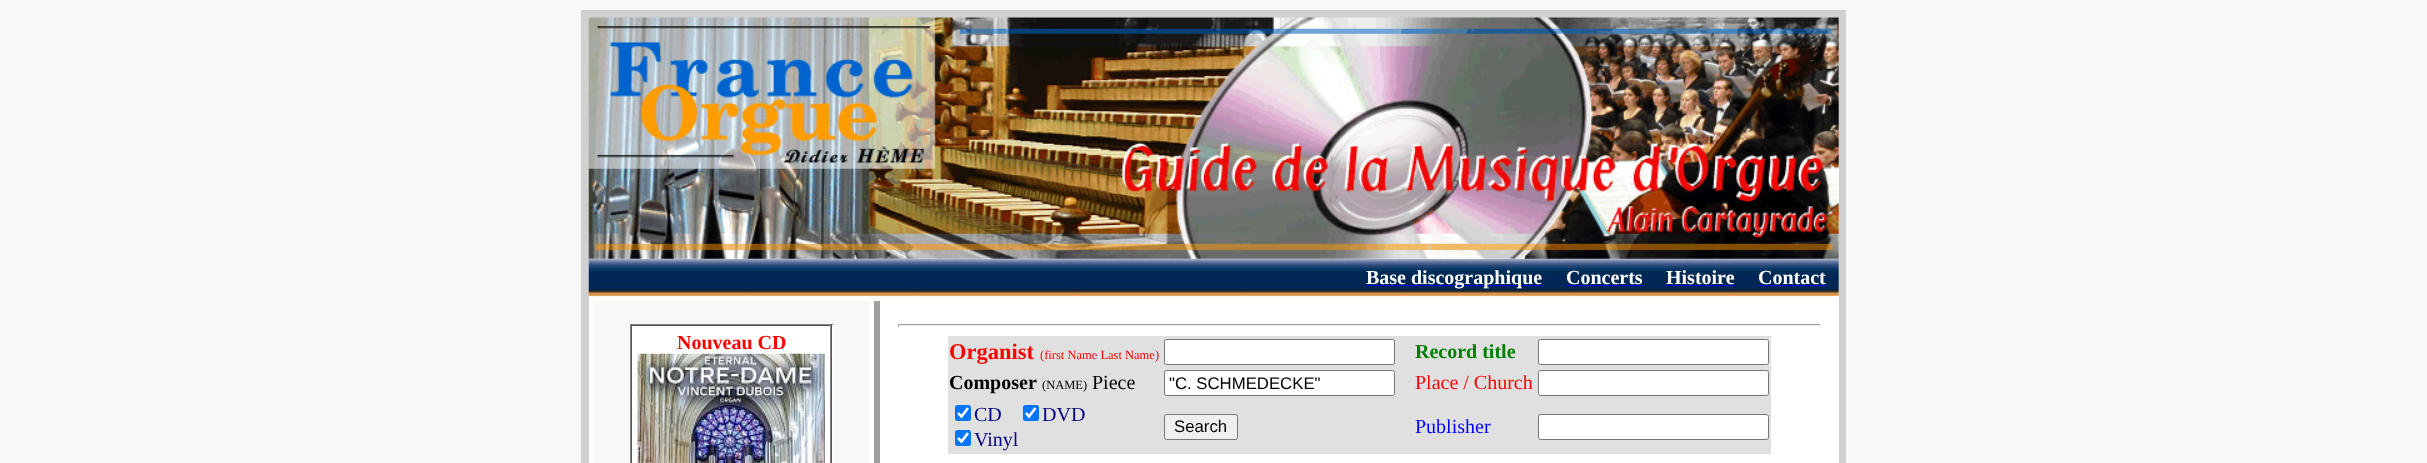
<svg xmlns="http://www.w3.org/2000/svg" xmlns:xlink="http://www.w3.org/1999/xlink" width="2427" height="463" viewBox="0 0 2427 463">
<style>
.cls-1{font:bold 20px Liberation Serif;fill:#ffffff}
.cls-2{font:bold 20px Liberation Serif;fill:#ff0000}
.cls-3{font:bold 22.5px Liberation Serif;fill:#ff0000}
.cls-4{font:12.5px Liberation Serif;fill:#ff0000}
.cls-5{font:bold 20px Liberation Serif;fill:#008000}
.cls-6{font:bold 20px Liberation Serif;fill:#000000}
.cls-7{font:12.5px Liberation Serif;fill:#000000}
.cls-8{font:20px Liberation Serif;fill:#000000}
.cls-9{font:16.75px Liberation Sans;fill:#000000}
.cls-10{font:20px Liberation Serif;fill:#ff0000}
.cls-11{font:20px Liberation Serif;fill:#000080}
.cls-12{font:20px Liberation Serif;fill:#0000ff}
</style>
<rect width="100%" height="100%" fill="#f8f8f8"/>
<rect fill="#d0d0d0" x="581" y="10" width="1265" height="453"/>
<rect fill="#ffffff" x="589" y="18" width="1250" height="445"/>
<image xlink:href="image1.png" x="588" y="258" width="1251" height="39"/>
<image xlink:href="image0.png" x="588" y="17" width="1251" height="242"/>
<rect fill="#0000ee" x="1366" y="285" width="177" height="1"/>
<rect fill="#0000ee" x="1566" y="285" width="77" height="1"/>
<rect fill="#0000ee" x="1666" y="285" width="69" height="1"/>
<rect fill="#0000ee" x="1759" y="285" width="67" height="1"/>
<rect fill="#f8f8f8" x="594" y="301" width="275" height="162"/>
<rect fill="#ffffff" x="632" y="325" width="201" height="138"/>
<rect fill="#808080" x="630" y="324" width="203" height="1"/>
<rect fill="#555555" x="831" y="324" width="1" height="139"/>
<rect fill="#808080" x="630" y="324" width="1" height="139"/>
<rect fill="#555555" x="631" y="325" width="200" height="1"/>
<rect fill="#808080" x="830" y="325" width="1" height="138"/>
<rect fill="#555555" x="631" y="325" width="1" height="138"/>
<image xlink:href="image2.png" x="637" y="353" width="188" height="110"/>
<rect fill="#a0a0a0" x="874" y="301" width="6" height="162"/>
<rect fill="#9f9f9f" x="898" y="324" width="923" height="1"/>
<rect fill="#eeeeee" x="1820" y="324" width="1" height="3"/>
<rect fill="#eeeeee" x="898" y="325" width="923" height="1"/>
<rect fill="#9f9f9f" x="898" y="324" width="1" height="3"/>
<rect fill="#e0e0e0" x="948" y="336" width="823" height="118"/>
<rect fill="#ffffff" stroke="#767676" x="1164.5" y="339.5" width="230" height="25" rx="2"/>
<rect fill="#ffffff" stroke="#767676" x="1538.5" y="339.5" width="230" height="25" rx="2"/>
<rect fill="#ffffff" stroke="#767676" x="1164.5" y="370.5" width="230" height="25" rx="2"/>
<rect fill="#ffffff" stroke="#767676" x="1538.5" y="370.5" width="230" height="25" rx="2"/>
<rect fill="#0075ff" x="955" y="405" width="16" height="16" rx="2.5"/>
<path fill="none" stroke="#ffffff" stroke-width="2.6" d="M958 413L961.5 416.5L968 408"/>
<rect fill="#0075ff" x="1023" y="405" width="16" height="16" rx="2.5"/>
<path fill="none" stroke="#ffffff" stroke-width="2.6" d="M1026 413L1029 416.5L1035.5 408"/>
<rect fill="#0075ff" x="955" y="430" width="16" height="16" rx="2.5"/>
<path fill="none" stroke="#ffffff" stroke-width="2.6" d="M958 438L961.5 441.5L968 433"/>
<rect fill="#efefef" stroke="#767676" x="1164.5" y="414.5" width="73" height="25" rx="2"/>
<rect fill="#ffffff" stroke="#767676" x="1538.5" y="414.5" width="230" height="25" rx="2"/>
<text class="cls-1" x="1366" y="284">Base discographique</text>
<text class="cls-1" x="1566" y="284">Concerts</text>
<text class="cls-1" x="1666" y="284">Histoire</text>
<text class="cls-1" x="1758" y="284">Contact</text>
<text class="cls-2" x="677" y="349">Nouveau CD</text>
<text class="cls-3" x="949" y="359">Organist</text>
<text class="cls-4" x="1040" y="359">(first Name Last Name)</text>
<text class="cls-5" x="1415" y="358">Record title</text>
<text class="cls-6" x="949" y="389">Composer</text>
<text class="cls-7" x="1042" y="389">(NAME)</text>
<text class="cls-8" x="1092" y="389">Piece</text>
<text class="cls-9" x="1169" y="389">"C. SCHMEDECKE"</text>
<text class="cls-10" x="1415" y="389">Place / Church</text>
<text class="cls-11" x="974" y="421">CD</text>
<text class="cls-11" x="1042" y="421">DVD</text>
<text class="cls-11" x="974" y="446">Vinyl</text>
<text class="cls-9" x="1174" y="432">Search</text>
<text class="cls-12" x="1415" y="433">Publisher</text>
</svg>
